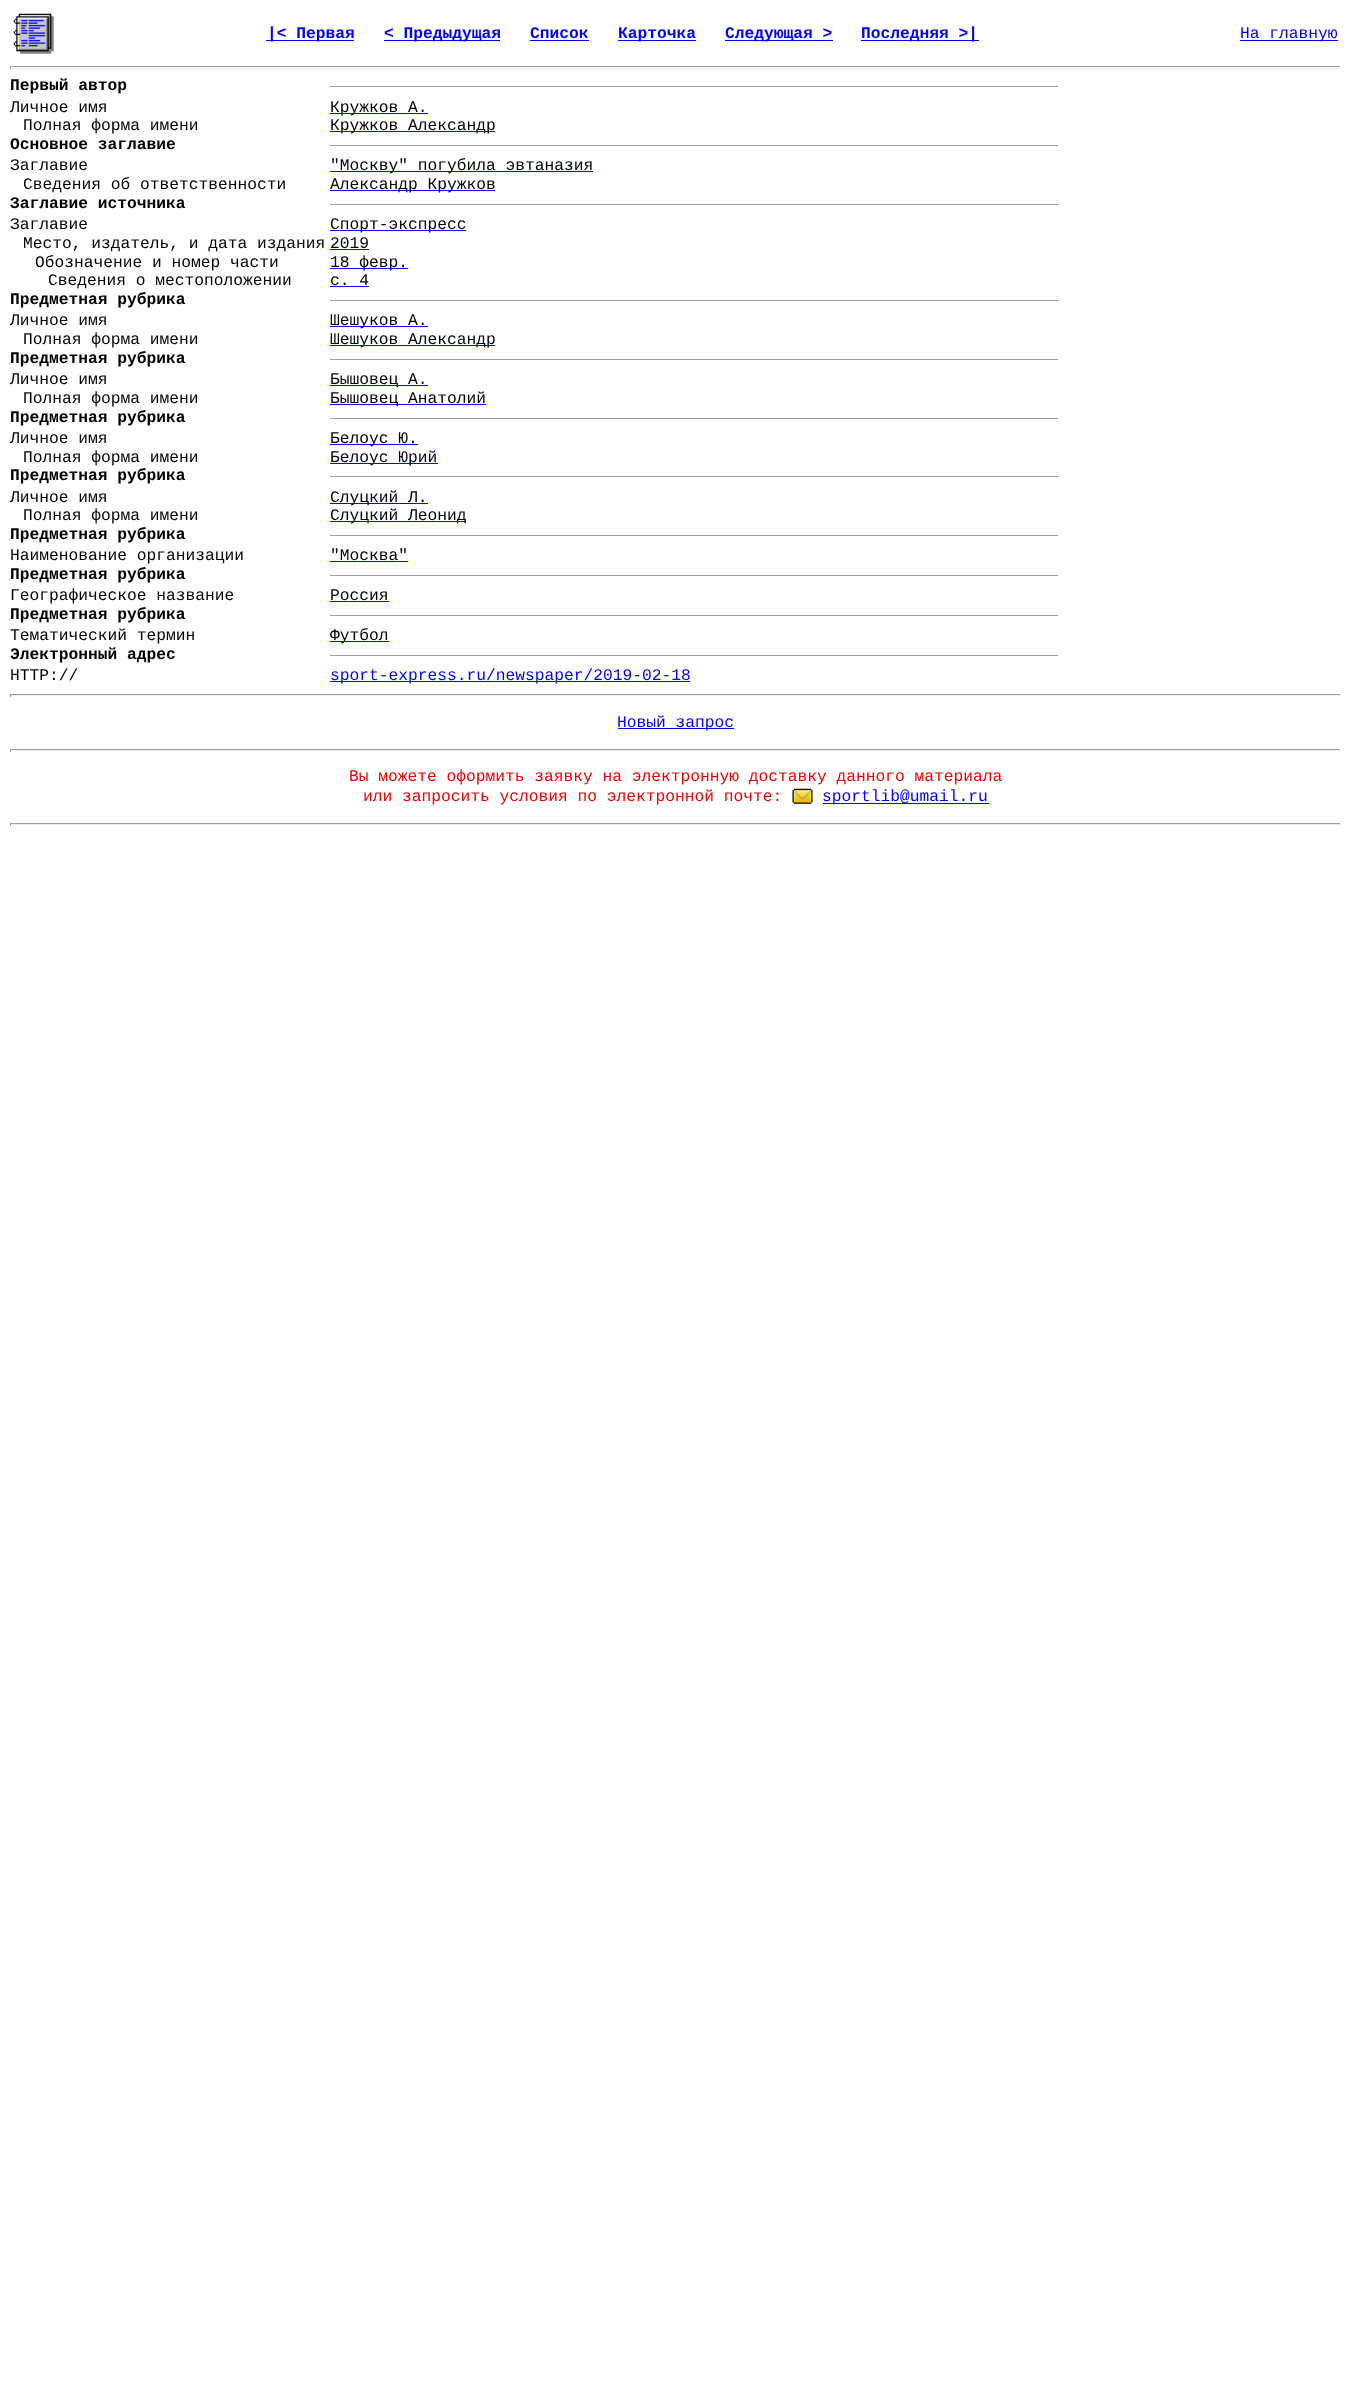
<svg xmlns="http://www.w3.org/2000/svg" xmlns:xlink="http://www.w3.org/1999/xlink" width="1351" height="2388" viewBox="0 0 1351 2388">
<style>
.cls-1{font:bold 16.25px Liberation Mono;fill:#0000ff}
.cls-2{font:16.25px Liberation Mono;fill:#0000ff}
.cls-3{font:bold 16.25px Liberation Mono;fill:#000000}
.cls-4{font:16.25px Liberation Mono;fill:#000000}
.cls-5{font:16.25px Liberation Mono;fill:#f00000}
</style>
<rect width="100%" height="100%" fill="#ffffff"/>
<image xlink:href="image0.png" x="13" y="13" width="41" height="41"/>
<rect fill="#0000ff" x="266" y="40" width="88" height="1"/>
<rect fill="#0000ff" x="384" y="40" width="116" height="1"/>
<rect fill="#0000ff" x="530" y="40" width="59" height="1"/>
<rect fill="#0000ff" x="618" y="40" width="78" height="1"/>
<rect fill="#0000ff" x="725" y="40" width="108" height="1"/>
<rect fill="#0000ff" x="861" y="40" width="118" height="1"/>
<rect fill="#0000ff" x="1240" y="40" width="98" height="1"/>
<rect fill="#9f9f9f" x="10" y="66" width="1331" height="1"/>
<rect fill="#eeeeee" x="1340" y="66" width="1" height="3"/>
<rect fill="#eeeeee" x="10" y="68" width="1331" height="1"/>
<rect fill="#9f9f9f" x="10" y="66" width="1" height="3"/>
<rect fill="#9f9f9f" x="330" y="86" width="729" height="1"/>
<rect fill="#eeeeee" x="1058" y="86" width="1" height="1"/>
<rect fill="#0000ff" x="330" y="113" width="98" height="1"/>
<rect fill="#0000ff" x="330" y="131" width="165" height="1"/>
<rect fill="#9f9f9f" x="330" y="145" width="729" height="1"/>
<rect fill="#eeeeee" x="1058" y="145" width="1" height="1"/>
<rect fill="#0000ff" x="330" y="171" width="263" height="1"/>
<rect fill="#0000ff" x="330" y="190" width="165" height="1"/>
<rect fill="#9f9f9f" x="330" y="204" width="729" height="1"/>
<rect fill="#eeeeee" x="1058" y="204" width="1" height="1"/>
<rect fill="#0000ff" x="330" y="230" width="136" height="1"/>
<rect fill="#0000ff" x="330" y="249" width="39" height="1"/>
<rect fill="#0000ff" x="330" y="268" width="78" height="1"/>
<rect fill="#0000ff" x="330" y="286" width="39" height="1"/>
<rect fill="#9f9f9f" x="330" y="300" width="729" height="1"/>
<rect fill="#eeeeee" x="1058" y="300" width="1" height="1"/>
<rect fill="#0000ff" x="330" y="326" width="98" height="1"/>
<rect fill="#0000ff" x="330" y="345" width="165" height="1"/>
<rect fill="#9f9f9f" x="330" y="359" width="729" height="1"/>
<rect fill="#eeeeee" x="1058" y="359" width="1" height="1"/>
<rect fill="#0000ff" x="330" y="385" width="98" height="1"/>
<rect fill="#0000ff" x="330" y="404" width="156" height="1"/>
<rect fill="#9f9f9f" x="330" y="418" width="729" height="1"/>
<rect fill="#eeeeee" x="1058" y="418" width="1" height="1"/>
<rect fill="#0000ff" x="330" y="444" width="88" height="1"/>
<rect fill="#0000ff" x="330" y="463" width="108" height="1"/>
<rect fill="#9f9f9f" x="330" y="476" width="729" height="1"/>
<rect fill="#eeeeee" x="1058" y="476" width="1" height="1"/>
<rect fill="#0000ff" x="330" y="503" width="98" height="1"/>
<rect fill="#0000ff" x="330" y="521" width="136" height="1"/>
<rect fill="#9f9f9f" x="330" y="535" width="729" height="1"/>
<rect fill="#eeeeee" x="1058" y="535" width="1" height="1"/>
<rect fill="#0000ff" x="330" y="561" width="78" height="1"/>
<rect fill="#9f9f9f" x="330" y="575" width="729" height="1"/>
<rect fill="#eeeeee" x="1058" y="575" width="1" height="1"/>
<rect fill="#0000ff" x="330" y="601" width="59" height="1"/>
<rect fill="#9f9f9f" x="330" y="615" width="729" height="1"/>
<rect fill="#eeeeee" x="1058" y="615" width="1" height="1"/>
<rect fill="#0000ff" x="330" y="641" width="59" height="1"/>
<rect fill="#9f9f9f" x="330" y="655" width="729" height="1"/>
<rect fill="#eeeeee" x="1058" y="655" width="1" height="1"/>
<rect fill="#0000ff" x="330" y="681" width="360" height="1"/>
<rect fill="#9f9f9f" x="10" y="694" width="1331" height="1"/>
<rect fill="#eeeeee" x="1340" y="694" width="1" height="3"/>
<rect fill="#eeeeee" x="10" y="695" width="1331" height="1"/>
<rect fill="#9f9f9f" x="10" y="694" width="1" height="3"/>
<rect fill="#0000ff" x="618" y="728" width="116" height="1"/>
<rect fill="#9f9f9f" x="10" y="749" width="1331" height="1"/>
<rect fill="#eeeeee" x="1340" y="749" width="1" height="3"/>
<rect fill="#eeeeee" x="10" y="750" width="1331" height="1"/>
<rect fill="#9f9f9f" x="10" y="749" width="1" height="3"/>
<image xlink:href="image1.png" x="792" y="788" width="21" height="16"/>
<rect fill="#0000ff" x="823" y="803" width="166" height="1"/>
<rect fill="#9f9f9f" x="10" y="823" width="1331" height="1"/>
<rect fill="#eeeeee" x="1340" y="823" width="1" height="3"/>
<rect fill="#eeeeee" x="10" y="824" width="1331" height="1"/>
<rect fill="#9f9f9f" x="10" y="823" width="1" height="3"/>
<text class="cls-1" x="267" y="38">|&lt; Первая</text>
<text class="cls-1" x="384" y="38">&lt; Предыдущая</text>
<text class="cls-1" x="530" y="38">Список</text>
<text class="cls-1" x="618" y="38">Карточка</text>
<text class="cls-1" x="725" y="38">Следующая &gt;</text>
<text class="cls-1" x="861" y="38">Последняя &gt;|</text>
<text class="cls-2" x="1240" y="38">На главную</text>
<text class="cls-3" x="10" y="90">Первый автор</text>
<text class="cls-4" x="10" y="112">Личное имя</text>
<text class="cls-4" x="330" y="112">Кружков А.</text>
<text class="cls-4" x="23" y="130">Полная форма имени</text>
<text class="cls-4" x="330" y="130">Кружков Александр</text>
<text class="cls-3" x="10" y="149">Основное заглавие</text>
<text class="cls-4" x="10" y="170">Заглавие</text>
<text class="cls-4" x="330" y="170">"Москву" погубила эвтаназия</text>
<text class="cls-4" x="23" y="189">Сведения об ответственности</text>
<text class="cls-4" x="330" y="189">Александр Кружков</text>
<text class="cls-3" x="10" y="208">Заглавие источника</text>
<text class="cls-4" x="10" y="229">Заглавие</text>
<text class="cls-4" x="330" y="229">Спорт-экспресс</text>
<text class="cls-4" x="23" y="248">Место, издатель, и дата издания</text>
<text class="cls-4" x="330" y="248">2019</text>
<text class="cls-4" x="35" y="267">Обозначение и номер части</text>
<text class="cls-4" x="330" y="267">18 февр.</text>
<text class="cls-4" x="48" y="285">Сведения о местоположении</text>
<text class="cls-4" x="330" y="285">с. 4</text>
<text class="cls-3" x="10" y="304">Предметная рубрика</text>
<text class="cls-4" x="10" y="325">Личное имя</text>
<text class="cls-4" x="330" y="325">Шешуков А.</text>
<text class="cls-4" x="23" y="344">Полная форма имени</text>
<text class="cls-4" x="330" y="344">Шешуков Александр</text>
<text class="cls-3" x="10" y="363">Предметная рубрика</text>
<text class="cls-4" x="10" y="384">Личное имя</text>
<text class="cls-4" x="330" y="384">Бышовец А.</text>
<text class="cls-4" x="23" y="403">Полная форма имени</text>
<text class="cls-4" x="330" y="403">Бышовец Анатолий</text>
<text class="cls-3" x="10" y="422">Предметная рубрика</text>
<text class="cls-4" x="10" y="443">Личное имя</text>
<text class="cls-4" x="330" y="443">Белоус Ю.</text>
<text class="cls-4" x="23" y="462">Полная форма имени</text>
<text class="cls-4" x="330" y="462">Белоус Юрий</text>
<text class="cls-3" x="10" y="480">Предметная рубрика</text>
<text class="cls-4" x="10" y="502">Личное имя</text>
<text class="cls-4" x="330" y="502">Слуцкий Л.</text>
<text class="cls-4" x="23" y="520">Полная форма имени</text>
<text class="cls-4" x="330" y="520">Слуцкий Леонид</text>
<text class="cls-3" x="10" y="539">Предметная рубрика</text>
<text class="cls-4" x="10" y="560">Наименование организации</text>
<text class="cls-4" x="330" y="560">"Москва"</text>
<text class="cls-3" x="10" y="579">Предметная рубрика</text>
<text class="cls-4" x="10" y="600">Географическое название</text>
<text class="cls-4" x="330" y="600">Россия</text>
<text class="cls-3" x="10" y="619">Предметная рубрика</text>
<text class="cls-4" x="10" y="640">Тематический термин</text>
<text class="cls-4" x="330" y="640">Футбол</text>
<text class="cls-3" x="10" y="659">Электронный адрес</text>
<text class="cls-4" x="10" y="680">HTTP://</text>
<text class="cls-2" x="330" y="680">sport-express.ru/newspaper/2019-02-18</text>
<text class="cls-2" x="617" y="727">Новый запрос</text>
<text class="cls-5" x="349" y="781">Вы можете оформить заявку на электронную доставку данного материала</text>
<text class="cls-5" x="363" y="801">или запросить условия по электронной почте:</text>
<text class="cls-2" x="822" y="801">sportlib@umail.ru</text>
</svg>
